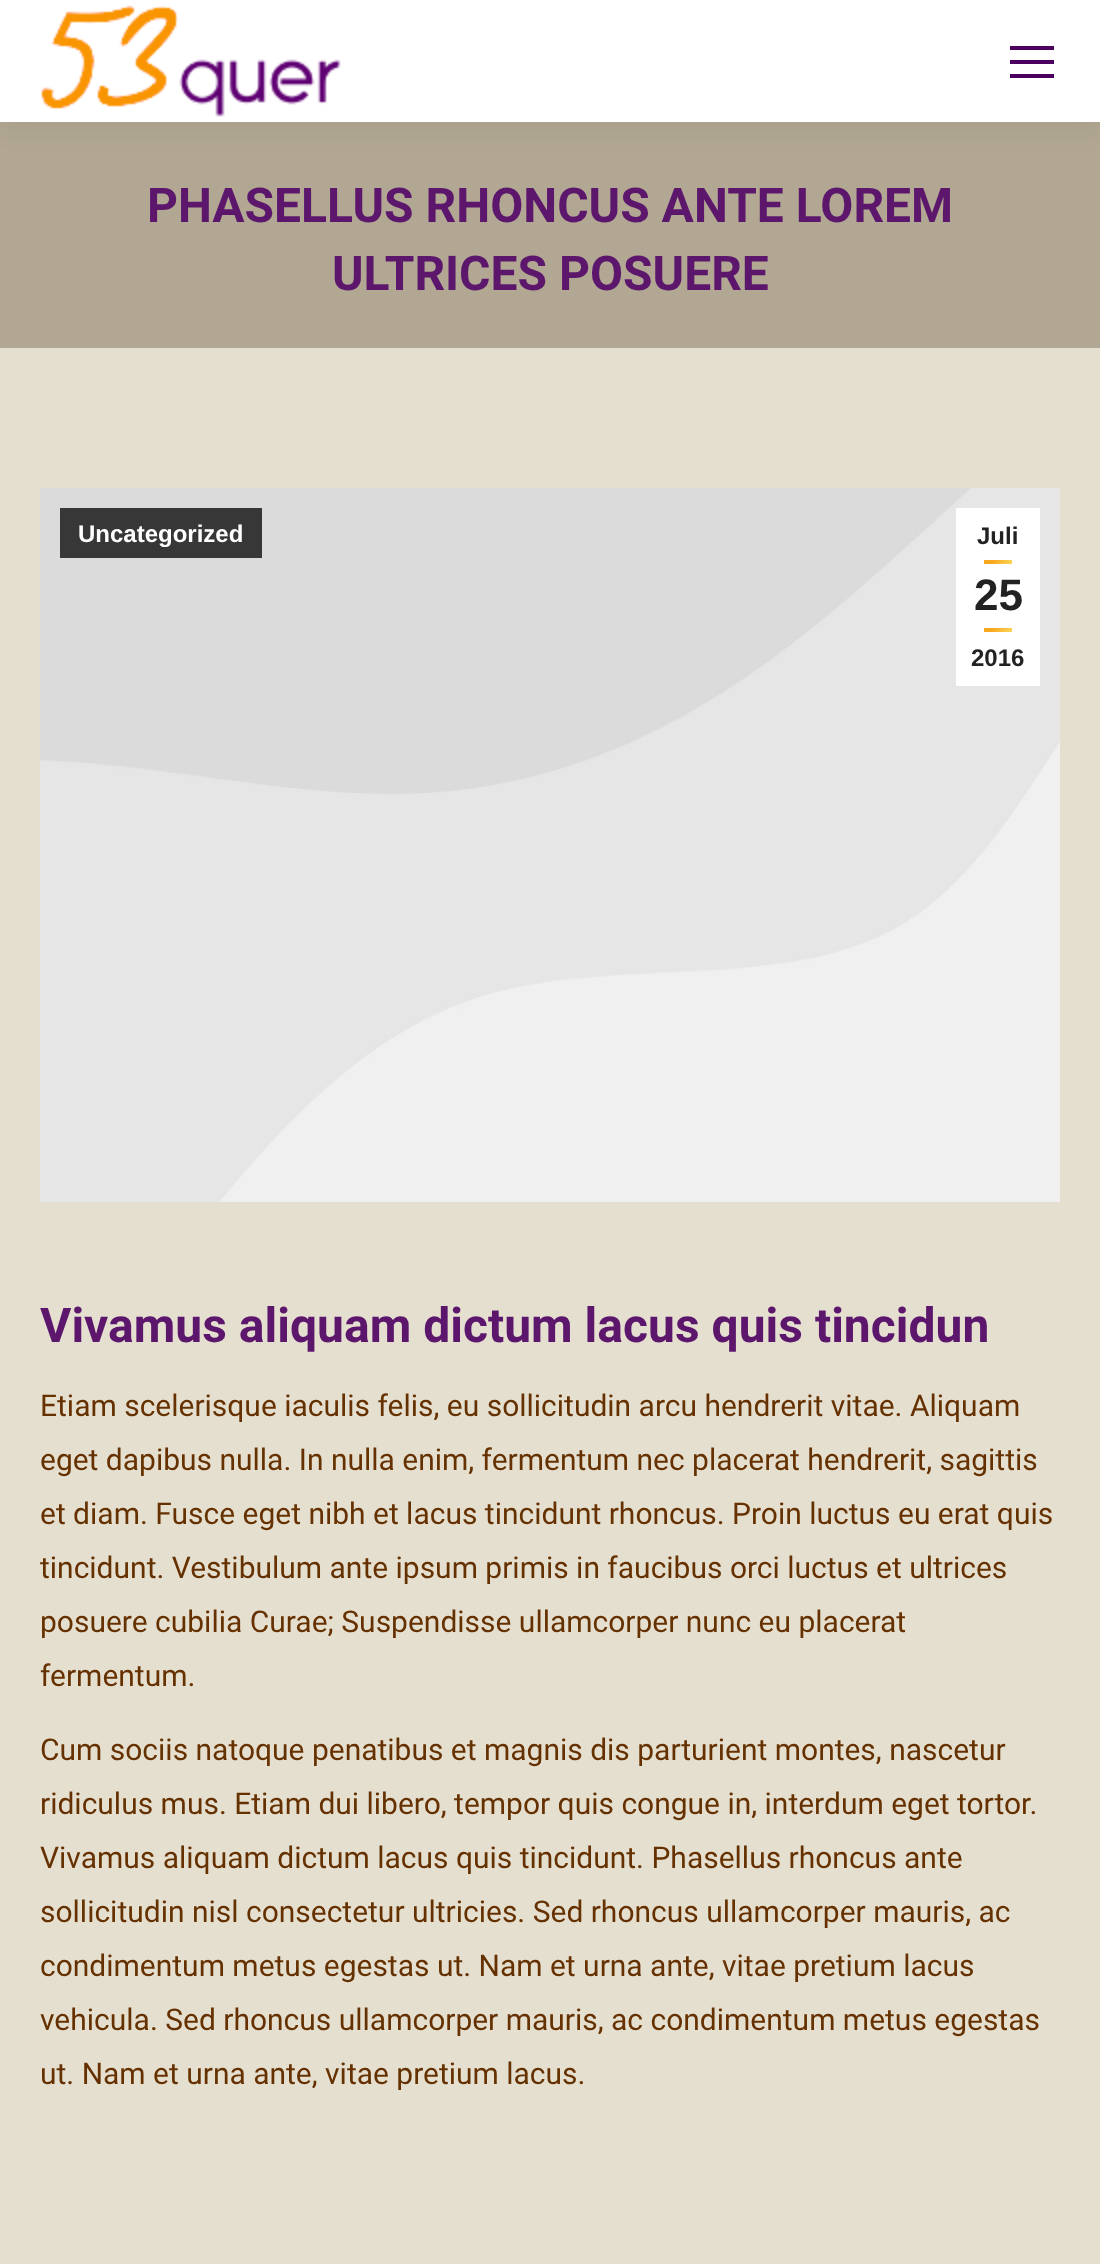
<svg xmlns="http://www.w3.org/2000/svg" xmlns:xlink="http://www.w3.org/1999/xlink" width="1100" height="2264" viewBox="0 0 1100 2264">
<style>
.cls-1{font:bold 48px Roboto;fill:#5c176d}
.cls-2{font:bold 24px Liberation Sans;fill:#ffffff}
.cls-3{font:bold 24px Liberation Sans;fill:#222222}
.cls-4{font:bold 44px Liberation Sans;fill:#222222}
.cls-5{font:30px Roboto;fill:#663100}
</style>
<defs>
<linearGradient id="g1" gradientUnits="userSpaceOnUse" x1="990" y1="554" x2="1006" y2="570"><stop offset="0.3" stop-color="#f7a71d"/><stop offset="1" stop-color="#fcd75d"/></linearGradient>
<linearGradient id="g2" gradientUnits="userSpaceOnUse" x1="990" y1="622" x2="1006" y2="638"><stop offset="0.3" stop-color="#f7a71d"/><stop offset="1" stop-color="#fcd75d"/></linearGradient>
</defs>
<rect width="100%" height="100%" fill="#e5dfd0"/>
<rect fill="#b1a792" x="0" y="122" width="1100" height="226"/>
<rect fill="#000000" fill-opacity="0.07" filter="blur(15px)" x="-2" y="-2" width="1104" height="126"/>
<rect fill="#ffffff" x="0" y="0" width="1100" height="122"/>
<image xlink:href="image0.png" x="41" y="5" width="300" height="112"/>
<rect fill="#4b005f" x="1010" y="46" width="44" height="4"/>
<rect fill="#4b005f" x="1010" y="60" width="44" height="4"/>
<rect fill="#4b005f" x="1010" y="74" width="44" height="4"/>
<image xlink:href="image1.png" x="40" y="488" width="1020" height="714"/>
<rect fill="#373737" x="60" y="508" width="202" height="50"/>
<rect fill="#ffffff" x="956" y="508" width="84" height="178"/>
<rect fill="url(#g1)" x="984" y="560" width="28" height="4"/>
<rect fill="url(#g2)" x="984" y="628" width="28" height="4"/>
<text class="cls-1" x="147" y="222">PHASELLUS RHONCUS ANTE LOREM</text>
<text class="cls-1" x="332" y="290">ULTRICES POSUERE</text>
<text class="cls-2" x="78" y="542">Uncategorized</text>
<text class="cls-3" x="977" y="544">Juli</text>
<text class="cls-4" x="974" y="610">25</text>
<text class="cls-3" x="971" y="666">2016</text>
<text class="cls-1" x="40" y="1342">Vivamus aliquam dictum lacus quis tincidun</text>
<text class="cls-5"><tspan x="40" y="1416">Etiam scelerisque iaculis felis, eu sollicitudin arcu hendrerit vitae. Aliquam</tspan><tspan x="40" y="1470">eget dapibus nulla. In nulla enim, fermentum nec placerat hendrerit, sagittis</tspan><tspan x="40" y="1524">et diam. Fusce eget nibh et lacus tincidunt rhoncus. Proin luctus eu erat quis</tspan><tspan x="40" y="1578">tincidunt. Vestibulum ante ipsum primis in faucibus orci luctus et ultrices</tspan><tspan x="40" y="1632">posuere cubilia Curae; Suspendisse ullamcorper nunc eu placerat</tspan><tspan x="40" y="1686">fermentum.</tspan></text>
<text class="cls-5"><tspan x="40" y="1760">Cum sociis natoque penatibus et magnis dis parturient montes, nascetur</tspan><tspan x="40" y="1814">ridiculus mus. Etiam dui libero, tempor quis congue in, interdum eget tortor.</tspan><tspan x="40" y="1868">Vivamus aliquam dictum lacus quis tincidunt. Phasellus rhoncus ante</tspan><tspan x="40" y="1922">sollicitudin nisl consectetur ultricies. Sed rhoncus ullamcorper mauris, ac</tspan><tspan x="40" y="1976">condimentum metus egestas ut. Nam et urna ante, vitae pretium lacus</tspan><tspan x="40" y="2030">vehicula. Sed rhoncus ullamcorper mauris, ac condimentum metus egestas</tspan><tspan x="40" y="2084">ut. Nam et urna ante, vitae pretium lacus.</tspan></text>
</svg>
